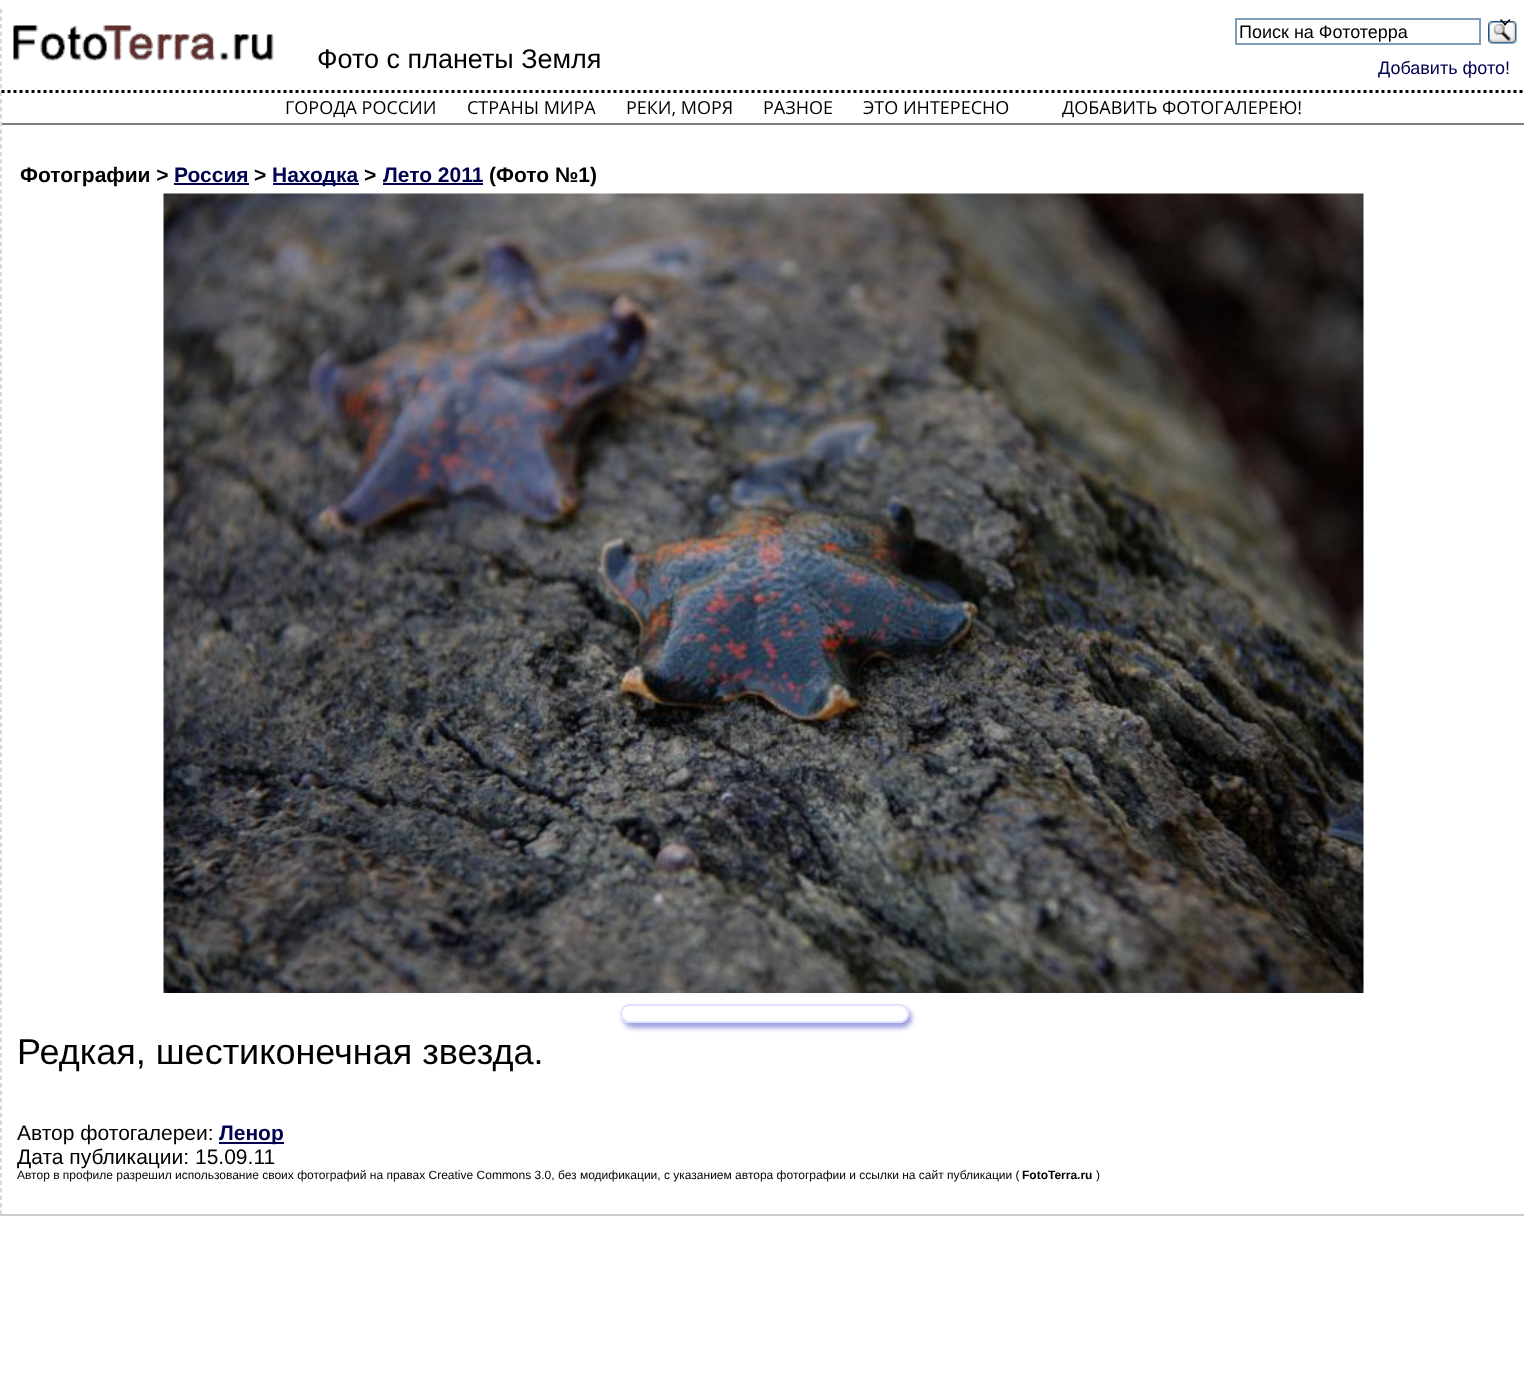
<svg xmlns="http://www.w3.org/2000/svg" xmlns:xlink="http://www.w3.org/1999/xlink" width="1524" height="1383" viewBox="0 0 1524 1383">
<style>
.cls-1{font:27px Liberation Sans;fill:#000000}
.cls-2{font:18px Liberation Sans;fill:#000000}
.cls-3{font:18px Liberation Sans;fill:#000250}
.cls-4{font:18px Open Sans;fill:#000000}
.cls-5{font:bold 21px Liberation Sans;fill:#000000}
.cls-6{font:bold 21px Liberation Sans;fill:#000250}
.cls-7{font:36px Liberation Sans;fill:#000000}
.cls-8{font:21px Liberation Sans;fill:#000000}
.cls-9{font:12px Liberation Sans;fill:#000000}
.cls-10{font:bold 12px Liberation Sans;fill:#000000}
</style>
<defs>
<clipPath id="clip1"><path d="M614 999H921V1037H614ZM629.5 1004H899.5C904.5 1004 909 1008.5 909 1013.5C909 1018.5 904.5 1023 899.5 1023H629.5C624.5 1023 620 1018.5 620 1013.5C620 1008.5 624.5 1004 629.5 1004Z" clip-rule="evenodd"/></clipPath>
</defs>
<rect width="100%" height="100%" fill="#ffffff"/>
<rect fill="#cccccc" x="0" y="1214" width="1524" height="2"/>
<path fill="none" stroke="#cccccc" stroke-width="1.5" stroke-dasharray="4.5 3.01" d="M1 9V1215"/>
<image xlink:href="image0.png" x="13" y="25" width="261" height="36"/>
<rect fill="none" stroke="#7f9db9" stroke-width="2" x="1236" y="19" width="244" height="25"/>
<image xlink:href="image1.png" x="1488" y="21" width="29" height="23"/>
<path fill="none" stroke="#000000" stroke-width="3" stroke-dasharray="3 3" d="M1.5 91.5H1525.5"/>
<rect fill="#808080" x="2" y="123" width="1522" height="2"/>
<path fill="#000000" d="M1509.5 19L1510.5 20L1505 25.5L1504 24.5Z"/>
<path fill="#000000" d="M1501 19L1506.5 24.5L1505 25.5L1500 20Z"/>
<rect fill="#000250" x="174" y="183" width="75" height="2"/>
<rect fill="#000250" x="273" y="183" width="86" height="2"/>
<rect fill="#000250" x="383" y="183" width="100" height="2"/>
<image xlink:href="image2.png" x="163" y="193" width="1201" height="800"/>
<g clip-path="url(#clip1)">
<rect fill="#a0a0e0" filter="blur(2.5px)" x="623" y="1008" width="289" height="20" rx="10"/>
</g>
<rect fill="none" stroke="#e1e2fe" stroke-width="2" x="621" y="1005" width="287" height="17" rx="8.5"/>
<rect fill="#000250" x="219" y="1142" width="65" height="2"/>
<text class="cls-1" x="317" y="68">Фото с планеты Земля</text>
<text class="cls-2" x="1239" y="38">Поиск на Фототерра</text>
<text class="cls-3" x="1378" y="74">Добавить фото!</text>
<text class="cls-4" x="285" y="114">ГОРОДА РОССИИ</text>
<text class="cls-4" x="467" y="114">СТРАНЫ МИРА</text>
<text class="cls-4" x="626" y="114">РЕКИ, МОРЯ</text>
<text class="cls-4" x="763" y="114">РАЗНОЕ</text>
<text class="cls-4" x="863" y="114">ЭТО ИНТЕРЕСНО</text>
<text class="cls-4" x="1062" y="114">ДОБАВИТЬ ФОТОГАЛЕРЕЮ!</text>
<text class="cls-5" x="20" y="182">Фотографии &gt;</text>
<text class="cls-6" x="174" y="182">Россия</text>
<text class="cls-5" x="254" y="182">&gt;</text>
<text class="cls-6" x="272" y="182">Находка</text>
<text class="cls-5" x="364" y="182">&gt;</text>
<text class="cls-6" x="383" y="182">Лето 2011</text>
<text class="cls-5" x="489" y="182">(Фото №1)</text>
<text class="cls-7" x="17" y="1064">Редкая, шестиконечная звезда.</text>
<text class="cls-8" x="17" y="1140">Автор фотогалереи:</text>
<text class="cls-6" x="219" y="1140">Ленор</text>
<text class="cls-8" x="17" y="1164">Дата публикации: 15.09.11</text>
<text class="cls-9" x="17" y="1179">Автор в профиле разрешил использование своих фотографий на правах Creative Commons 3.0, без модификации, с указанием автора фотографии и ссылки на сайт публикации (</text>
<text class="cls-10" x="1022" y="1179">FotoTerra.ru</text>
<text class="cls-9" x="1096" y="1179">)</text>
</svg>
